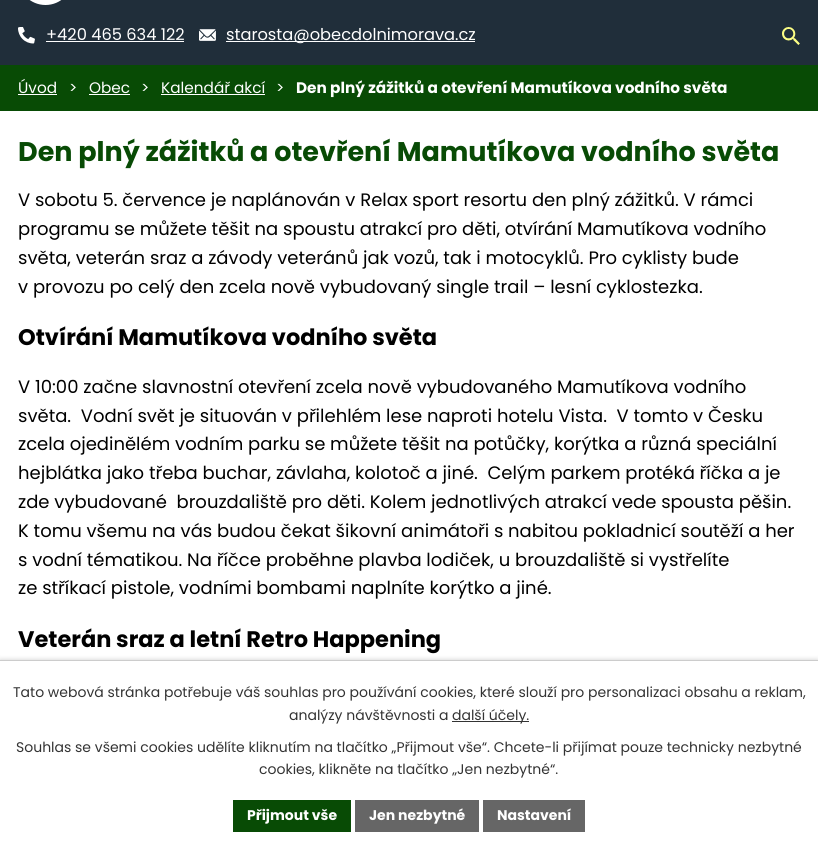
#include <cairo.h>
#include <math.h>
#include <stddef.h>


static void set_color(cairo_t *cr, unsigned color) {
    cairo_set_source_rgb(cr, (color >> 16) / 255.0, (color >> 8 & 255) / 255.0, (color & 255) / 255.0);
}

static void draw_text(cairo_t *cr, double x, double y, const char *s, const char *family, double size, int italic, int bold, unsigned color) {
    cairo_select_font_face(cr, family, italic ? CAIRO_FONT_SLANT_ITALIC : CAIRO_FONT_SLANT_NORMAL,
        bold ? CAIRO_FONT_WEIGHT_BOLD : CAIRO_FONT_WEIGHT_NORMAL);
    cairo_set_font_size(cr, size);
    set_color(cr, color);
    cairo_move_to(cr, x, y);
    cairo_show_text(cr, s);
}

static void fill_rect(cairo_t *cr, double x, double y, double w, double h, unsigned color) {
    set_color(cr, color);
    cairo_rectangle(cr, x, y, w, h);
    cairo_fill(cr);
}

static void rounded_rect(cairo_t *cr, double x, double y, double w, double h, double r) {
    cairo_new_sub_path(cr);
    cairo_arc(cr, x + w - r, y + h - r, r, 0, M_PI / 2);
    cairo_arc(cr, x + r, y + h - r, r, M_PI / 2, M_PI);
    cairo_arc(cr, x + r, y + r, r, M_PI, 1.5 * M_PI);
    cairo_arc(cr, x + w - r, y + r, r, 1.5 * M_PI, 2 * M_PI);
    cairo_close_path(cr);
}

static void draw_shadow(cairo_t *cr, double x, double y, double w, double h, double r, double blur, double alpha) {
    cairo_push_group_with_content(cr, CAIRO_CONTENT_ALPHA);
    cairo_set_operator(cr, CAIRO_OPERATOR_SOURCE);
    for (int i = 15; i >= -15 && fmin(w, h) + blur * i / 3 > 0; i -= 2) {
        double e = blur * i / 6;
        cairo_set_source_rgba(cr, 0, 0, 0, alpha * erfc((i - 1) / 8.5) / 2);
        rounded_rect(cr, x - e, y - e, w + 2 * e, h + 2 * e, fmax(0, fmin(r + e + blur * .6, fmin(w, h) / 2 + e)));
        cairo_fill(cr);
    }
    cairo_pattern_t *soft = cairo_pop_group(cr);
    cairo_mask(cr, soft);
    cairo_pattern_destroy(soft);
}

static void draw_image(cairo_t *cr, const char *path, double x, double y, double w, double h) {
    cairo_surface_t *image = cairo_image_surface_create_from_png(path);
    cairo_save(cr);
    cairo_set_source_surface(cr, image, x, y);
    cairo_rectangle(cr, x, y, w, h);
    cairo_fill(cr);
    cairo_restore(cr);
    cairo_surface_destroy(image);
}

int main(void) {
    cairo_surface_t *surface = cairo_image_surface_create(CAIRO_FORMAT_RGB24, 818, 851);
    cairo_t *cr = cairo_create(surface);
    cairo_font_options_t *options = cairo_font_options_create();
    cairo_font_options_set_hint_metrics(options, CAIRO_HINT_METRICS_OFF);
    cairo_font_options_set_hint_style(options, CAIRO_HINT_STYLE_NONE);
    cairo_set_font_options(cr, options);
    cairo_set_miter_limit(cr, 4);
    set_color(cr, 0xFFFFFF);
    cairo_paint(cr);
    fill_rect(cr, 0, 0, 818, 65, 0x202E3A);
    set_color(cr, 0xFFFFFF);
    rounded_rect(cr, 18, -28, 55, 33, 27.5);
    cairo_fill(cr);
    draw_image(cr, "assets/img1.png", 18, 27, 17, 17);
    draw_text(cr, 46, 40, "+420 465 634 122", "Poppins", 16.25, 0, 0, 0xFFFFFF);
    fill_rect(cr, 46, 41, 138, 1, 0xFFFFFF);
    draw_image(cr, "assets/img2.png", 199, 29, 17, 12);
    fill_rect(cr, 226, 41, 249, 1, 0xFFFFFF);
    draw_text(cr, 226, 40, "starosta@obecdolnimorava.cz", "Poppins", 16.25, 0, 0, 0xFFFFFF);
    draw_image(cr, "assets/img3.png", 782, 27, 18, 18);
    fill_rect(cr, 0, 65, 818, 46, 0x084B05);
    draw_text(cr, 18, 93, "Úvod", "Poppins", 15.3, 0, 0, 0xFFFFFF);
    fill_rect(cr, 18, 94, 39, 1, 0xFFFFFF);
    draw_text(cr, 69, 93, ">", "Poppins", 15.3, 0, 0, 0xFFFFFF);
    draw_text(cr, 89, 93, "Obec", "Poppins", 15.3, 0, 0, 0xFFFFFF);
    fill_rect(cr, 89, 94, 41, 1, 0xFFFFFF);
    draw_text(cr, 141, 93, ">", "Poppins", 15.3, 0, 0, 0xFFFFFF);
    draw_text(cr, 161, 93, "Kalendář akcí", "Poppins", 15.3, 0, 0, 0xFFFFFF);
    fill_rect(cr, 161, 94, 104, 1, 0xFFFFFF);
    draw_text(cr, 276, 93, ">", "Poppins", 15.3, 0, 0, 0xFFFFFF);
    draw_text(cr, 296, 93, "Den plný zážitků a otevření Mamutíkova vodního světa", "Poppins", 15.3, 0, 1, 0xFFFFFF);
    draw_text(cr, 18, 161, "Den plný zážitků a otevření Mamutíkova vodního světa", "Poppins", 27, 0, 1, 0x084B05);
    draw_text(cr, 18, 206, "V sobotu 5. července je naplánován v Relax sport resortu den plný zážitků. V rámci", "Poppins", 18, 0, 0, 0x000000);
    draw_text(cr, 18, 235, "programu se můžete těšit na spoustu atrakcí pro děti, otvírání Mamutíkova vodního", "Poppins", 18, 0, 0, 0x000000);
    draw_text(cr, 18, 264, "světa, veterán sraz a závody veteránů jak vozů, tak i motocyklů. Pro cyklisty bude", "Poppins", 18, 0, 0, 0x000000);
    draw_text(cr, 18, 293, "v provozu po celý den zcela nově vybudovaný single trail – lesní cyklostezka.", "Poppins", 18, 0, 0, 0x000000);
    draw_text(cr, 18, 345, "Otvírání Mamutíkova vodního světa", "Poppins", 22.5, 0, 1, 0x000000);
    draw_text(cr, 18, 393, "V 10:00 začne slavnostní otevření zcela nově vybudovaného Mamutíkova vodního", "Poppins", 18, 0, 0, 0x000000);
    draw_text(cr, 18, 422, "světa.  Vodní svět je situován v přilehlém lese naproti hotelu Vista.  V tomto v Česku", "Poppins", 18, 0, 0, 0x000000);
    draw_text(cr, 18, 450, "zcela ojedinělém vodním parku se můžete těšit na potůčky, korýtka a různá speciální", "Poppins", 18, 0, 0, 0x000000);
    draw_text(cr, 18, 479, "hejblátka jako třeba buchar, závlaha, kolotoč a jiné.  Celým parkem protéká říčka a je", "Poppins", 18, 0, 0, 0x000000);
    draw_text(cr, 18, 508, "zde vybudované  brouzdaliště pro děti. Kolem jednotlivých atrakcí vede spousta pěšin.", "Poppins", 18, 0, 0, 0x000000);
    draw_text(cr, 18, 537, "K tomu všemu na vás budou čekat šikovní animátoři s nabitou pokladnicí soutěží a her", "Poppins", 18, 0, 0, 0x000000);
    draw_text(cr, 18, 566, "s vodní tématikou. Na říčce proběhne plavba lodiček, u brouzdaliště si vystřelíte", "Poppins", 18, 0, 0, 0x000000);
    draw_text(cr, 18, 594, "ze stříkací pistole, vodními bombami naplníte korýtko a jiné.", "Poppins", 18, 0, 0, 0x000000);
    draw_text(cr, 18, 647, "Veterán sraz a letní Retro Happening", "Poppins", 22.5, 0, 1, 0x000000);
    set_color(cr, 0x000000);
    draw_shadow(cr, 0, 660, 818, 191, 0, 2.5, 0.2);
    fill_rect(cr, 0, 661, 818, 190, 0xFFFFFF);
    fill_rect(cr, 0, 660, 818, 1, 0xCCCCCC);
    draw_text(cr, 13, 697, "Tato webová stránka potřebuje váš souhlas pro používání cookies, které slouží pro personalizaci obsahu a reklam,", "Poppins", 14, 0, 0, 0x333333);
    draw_text(cr, 289, 720, "analýzy návštěvnosti a", "Poppins", 14, 0, 0, 0x333333);
    fill_rect(cr, 452, 721, 77, 1, 0x333333);
    draw_text(cr, 452, 720, "další účely.", "Poppins", 14, 0, 0, 0x333333);
    draw_text(cr, 16, 752, "Souhlas se všemi cookies udělíte kliknutím na tlačítko „Přijmout vše“. Chcete-li přijímat pouze technicky nezbytné", "Poppins", 14, 0, 0, 0x333333);
    draw_text(cr, 259, 774, "cookies, klikněte na tlačítko „Jen nezbytné“.", "Poppins", 14, 0, 0, 0x333333);
    fill_rect(cr, 233, 800, 118, 32, 0x084B05);
    draw_text(cr, 247, 820, "Přijmout vše", "Poppins", 14, 0, 1, 0xFFFFFF);
    fill_rect(cr, 355, 800, 124, 32, 0x666666);
    draw_text(cr, 369, 820, "Jen nezbytné", "Poppins", 14, 0, 1, 0xFFFFFF);
    fill_rect(cr, 483, 800, 102, 32, 0x666666);
    draw_text(cr, 497, 820, "Nastavení", "Poppins", 14, 0, 1, 0xFFFFFF);
    cairo_surface_write_to_png(surface, "output.png");
    cairo_font_options_destroy(options);
    cairo_destroy(cr);
    cairo_surface_destroy(surface);
    return 0;
}
